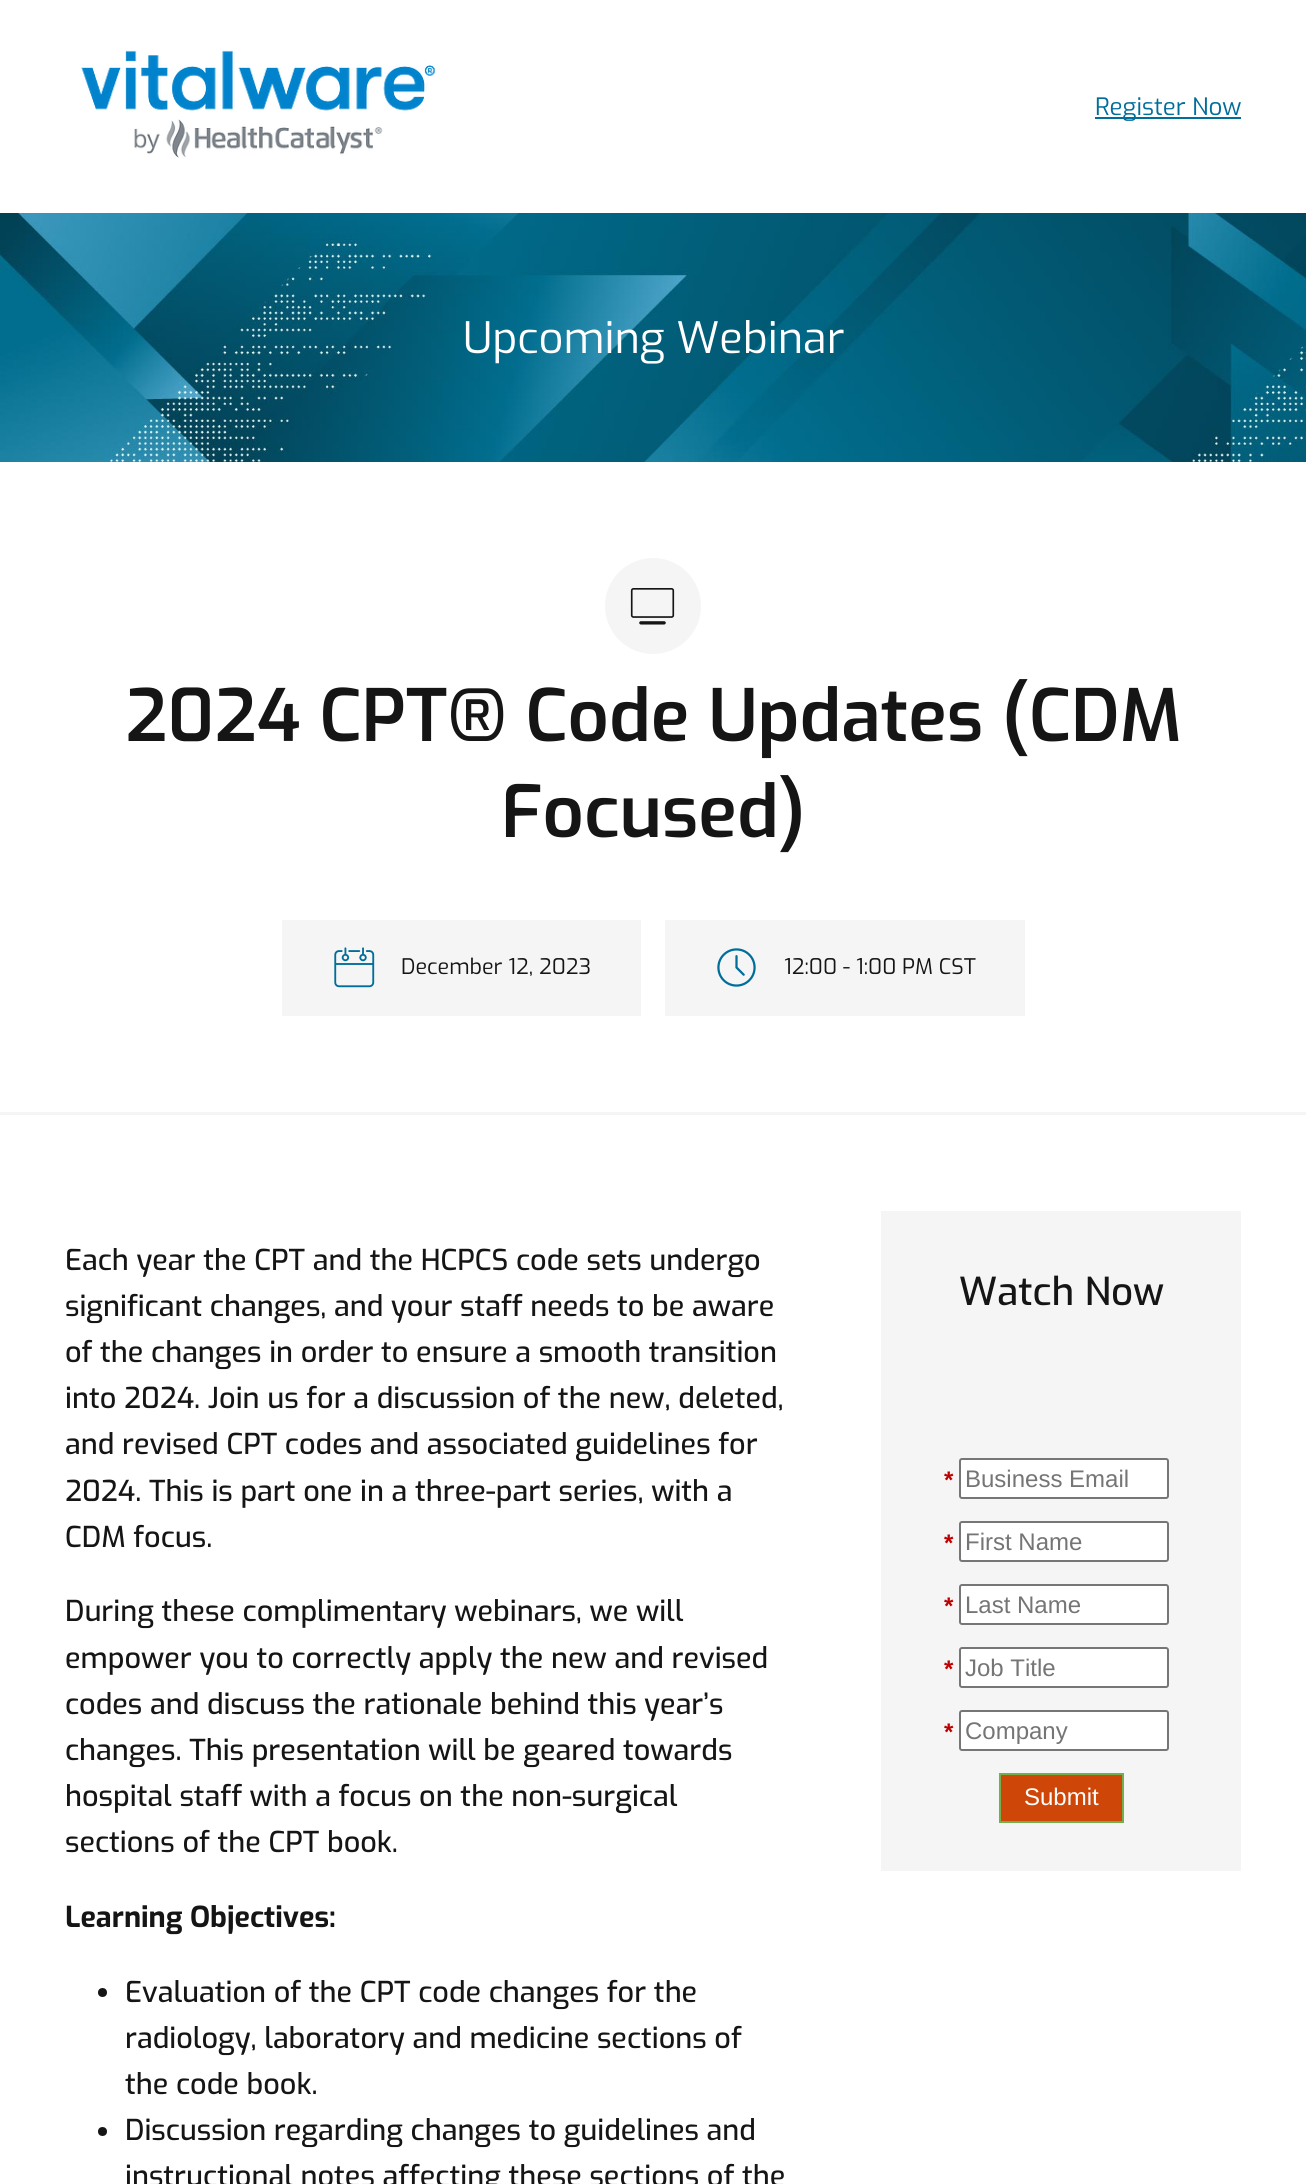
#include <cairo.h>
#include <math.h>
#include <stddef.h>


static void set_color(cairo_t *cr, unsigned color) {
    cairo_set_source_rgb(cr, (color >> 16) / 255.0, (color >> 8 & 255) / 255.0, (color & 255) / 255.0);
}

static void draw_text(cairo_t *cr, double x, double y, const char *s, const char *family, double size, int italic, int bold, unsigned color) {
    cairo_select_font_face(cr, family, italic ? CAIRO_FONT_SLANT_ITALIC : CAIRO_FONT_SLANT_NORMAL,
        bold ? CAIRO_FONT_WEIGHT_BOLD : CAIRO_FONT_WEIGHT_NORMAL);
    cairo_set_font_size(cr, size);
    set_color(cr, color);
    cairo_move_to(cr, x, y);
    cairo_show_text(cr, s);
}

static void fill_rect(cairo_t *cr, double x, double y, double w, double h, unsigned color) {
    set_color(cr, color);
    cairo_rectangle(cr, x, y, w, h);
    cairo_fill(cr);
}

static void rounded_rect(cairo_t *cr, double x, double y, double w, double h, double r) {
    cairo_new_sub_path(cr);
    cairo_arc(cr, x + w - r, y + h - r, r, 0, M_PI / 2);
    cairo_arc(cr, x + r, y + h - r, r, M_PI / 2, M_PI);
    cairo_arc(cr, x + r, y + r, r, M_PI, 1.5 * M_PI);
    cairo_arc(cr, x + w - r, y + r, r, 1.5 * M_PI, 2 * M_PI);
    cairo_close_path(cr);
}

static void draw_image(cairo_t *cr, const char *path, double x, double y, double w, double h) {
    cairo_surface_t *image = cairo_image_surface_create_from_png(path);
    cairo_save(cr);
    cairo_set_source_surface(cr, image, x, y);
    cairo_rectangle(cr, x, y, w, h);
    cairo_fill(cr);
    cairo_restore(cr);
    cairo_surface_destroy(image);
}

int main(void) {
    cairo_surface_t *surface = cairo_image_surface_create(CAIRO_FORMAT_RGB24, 1306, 2184);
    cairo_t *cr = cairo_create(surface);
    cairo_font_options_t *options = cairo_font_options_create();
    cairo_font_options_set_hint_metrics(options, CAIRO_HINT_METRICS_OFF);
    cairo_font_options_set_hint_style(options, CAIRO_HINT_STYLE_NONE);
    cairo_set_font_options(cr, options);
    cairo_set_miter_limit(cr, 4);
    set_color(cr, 0xFFFFFF);
    cairo_paint(cr);
    draw_image(cr, "assets/img1.png", 81, 50, 355, 108);
    fill_rect(cr, 1095, 117, 146, 2, 0x006D9A);
    draw_text(cr, 1095, 115, "Register Now", "Exo", 24, 0, 0, 0x006D9A);
    draw_image(cr, "assets/img2.png", 0, 213, 1306, 249);
    draw_text(cr, 463, 353, "Upcoming Webinar", "Exo", 43.25, 0, 0, 0xFFFFFF);
    fill_rect(cr, 0, 1112, 1306, 3, 0xF5F5F5);
    cairo_new_path(cr);
    cairo_arc(cr, 653, 606, 48, 0, 2 * M_PI);
    cairo_fill(cr);
    draw_image(cr, "assets/img3.png", 630, 588, 45, 37);
    draw_text(cr, 125, 741, "2024 CPT® Code Updates (CDM", "Exo SemiBold", 72, 0, 0, 0x151515);
    draw_text(cr, 501, 837, "Focused)", "Exo SemiBold", 72, 0, 0, 0x151515);
    fill_rect(cr, 282, 920, 359, 96, 0xF5F5F5);
    draw_image(cr, "assets/img4.png", 334, 947, 41, 41);
    draw_text(cr, 401, 974, "December 12, 2023", "Exo", 21.5, 0, 0, 0x151515);
    fill_rect(cr, 665, 920, 360, 96, 0xF5F5F5);
    draw_image(cr, "assets/img5.png", 717, 948, 39, 39);
    draw_text(cr, 784, 974, "12:00 - 1:00 PM CST", "Exo", 21.5, 0, 0, 0x151515);
    draw_text(cr, 65, 1270, "Each year the CPT and the HCPCS code sets undergo", "Exo Medium", 28.8, 0, 0, 0x151515);
    draw_text(cr, 65, 1316, "significant changes, and your staff needs to be aware", "Exo Medium", 28.8, 0, 0, 0x151515);
    draw_text(cr, 65, 1362, "of the changes in order to ensure a smooth transition", "Exo Medium", 28.8, 0, 0, 0x151515);
    draw_text(cr, 65, 1408, "into 2024. Join us for a discussion of the new, deleted,", "Exo Medium", 28.8, 0, 0, 0x151515);
    draw_text(cr, 65, 1454, "and revised CPT codes and associated guidelines for", "Exo Medium", 28.8, 0, 0, 0x151515);
    draw_text(cr, 65, 1501, "2024. This is part one in a three-part series, with a", "Exo Medium", 28.8, 0, 0, 0x151515);
    draw_text(cr, 65, 1547, "CDM focus.", "Exo Medium", 28.8, 0, 0, 0x151515);
    draw_text(cr, 65, 1621, "During these complimentary webinars, we will", "Exo Medium", 28.8, 0, 0, 0x151515);
    draw_text(cr, 65, 1668, "empower you to correctly apply the new and revised", "Exo Medium", 28.8, 0, 0, 0x151515);
    draw_text(cr, 65, 1714, "codes and discuss the rationale behind this year’s", "Exo Medium", 28.8, 0, 0, 0x151515);
    draw_text(cr, 65, 1760, "changes. This presentation will be geared towards", "Exo Medium", 28.8, 0, 0, 0x151515);
    draw_text(cr, 65, 1806, "hospital staff with a focus on the non-surgical", "Exo Medium", 28.8, 0, 0, 0x151515);
    draw_text(cr, 65, 1852, "sections of the CPT book.", "Exo Medium", 28.8, 0, 0, 0x151515);
    draw_text(cr, 65, 1927, "Learning Objectives:", "Exo", 28.8, 0, 1, 0x151515);
    cairo_new_path(cr);
    cairo_arc(cr, 102.5, 1992.5, 4.5, 0, 2 * M_PI);
    cairo_fill(cr);
    draw_text(cr, 125, 2002, "Evaluation of the CPT code changes for the", "Exo Medium", 28.8, 0, 0, 0x151515);
    draw_text(cr, 125, 2048, "radiology, laboratory and medicine sections of", "Exo Medium", 28.8, 0, 0, 0x151515);
    draw_text(cr, 125, 2094, "the code book.", "Exo Medium", 28.8, 0, 0, 0x151515);
    cairo_new_path(cr);
    cairo_arc(cr, 102.5, 2131.5, 4.5, 0, 2 * M_PI);
    cairo_fill(cr);
    draw_text(cr, 125, 2140, "Discussion regarding changes to guidelines and", "Exo Medium", 28.8, 0, 0, 0x151515);
    draw_text(cr, 125, 2186, "instructional notes affecting these sections of the", "Exo Medium", 28.8, 0, 0, 0x151515);
    fill_rect(cr, 881, 1211, 360, 660, 0xF5F5F5);
    draw_text(cr, 959, 1305, "Watch Now", "Exo Medium", 38.5, 0, 0, 0x151515);
    draw_text(cr, 944, 1488, "*", "Liberation Sans", 24, 0, 1, 0xBF0000);
    set_color(cr, 0xFFFFFF);
    rounded_rect(cr, 960, 1459, 208, 39, 2);
    cairo_fill_preserve(cr);
    set_color(cr, 0x767676);
    cairo_stroke(cr);
    draw_text(cr, 965, 1487, "Business Email", "Liberation Sans", 24, 0, 0, 0x757575);
    draw_text(cr, 944, 1551, "*", "Liberation Sans", 24, 0, 1, 0xBF0000);
    set_color(cr, 0xFFFFFF);
    rounded_rect(cr, 960, 1522, 208, 39, 2);
    cairo_fill_preserve(cr);
    set_color(cr, 0x767676);
    cairo_stroke(cr);
    draw_text(cr, 965, 1550, "First Name", "Liberation Sans", 24, 0, 0, 0x757575);
    draw_text(cr, 944, 1614, "*", "Liberation Sans", 24, 0, 1, 0xBF0000);
    set_color(cr, 0xFFFFFF);
    rounded_rect(cr, 960, 1585, 208, 39, 2);
    cairo_fill_preserve(cr);
    set_color(cr, 0x767676);
    cairo_stroke(cr);
    draw_text(cr, 965, 1613, "Last Name", "Liberation Sans", 24, 0, 0, 0x757575);
    draw_text(cr, 944, 1677, "*", "Liberation Sans", 24, 0, 1, 0xBF0000);
    set_color(cr, 0xFFFFFF);
    rounded_rect(cr, 960, 1648, 208, 39, 2);
    cairo_fill_preserve(cr);
    set_color(cr, 0x767676);
    cairo_stroke(cr);
    draw_text(cr, 965, 1676, "Job Title", "Liberation Sans", 24, 0, 0, 0x757575);
    draw_text(cr, 944, 1740, "*", "Liberation Sans", 24, 0, 1, 0xBF0000);
    set_color(cr, 0xFFFFFF);
    rounded_rect(cr, 960, 1711, 208, 39, 2);
    cairo_fill_preserve(cr);
    set_color(cr, 0x767676);
    cairo_stroke(cr);
    draw_text(cr, 965, 1739, "Company", "Liberation Sans", 24, 0, 0, 0x757575);
    set_color(cr, 0xCE4709);
    cairo_rectangle(cr, 1000, 1774, 123, 48);
    cairo_fill_preserve(cr);
    set_color(cr, 0x75AE4C);
    cairo_stroke(cr);
    draw_text(cr, 1024, 1805, "Submit", "Liberation Sans", 24, 0, 0, 0xFFFFFF);
    cairo_surface_write_to_png(surface, "output.png");
    cairo_font_options_destroy(options);
    cairo_destroy(cr);
    cairo_surface_destroy(surface);
    return 0;
}
